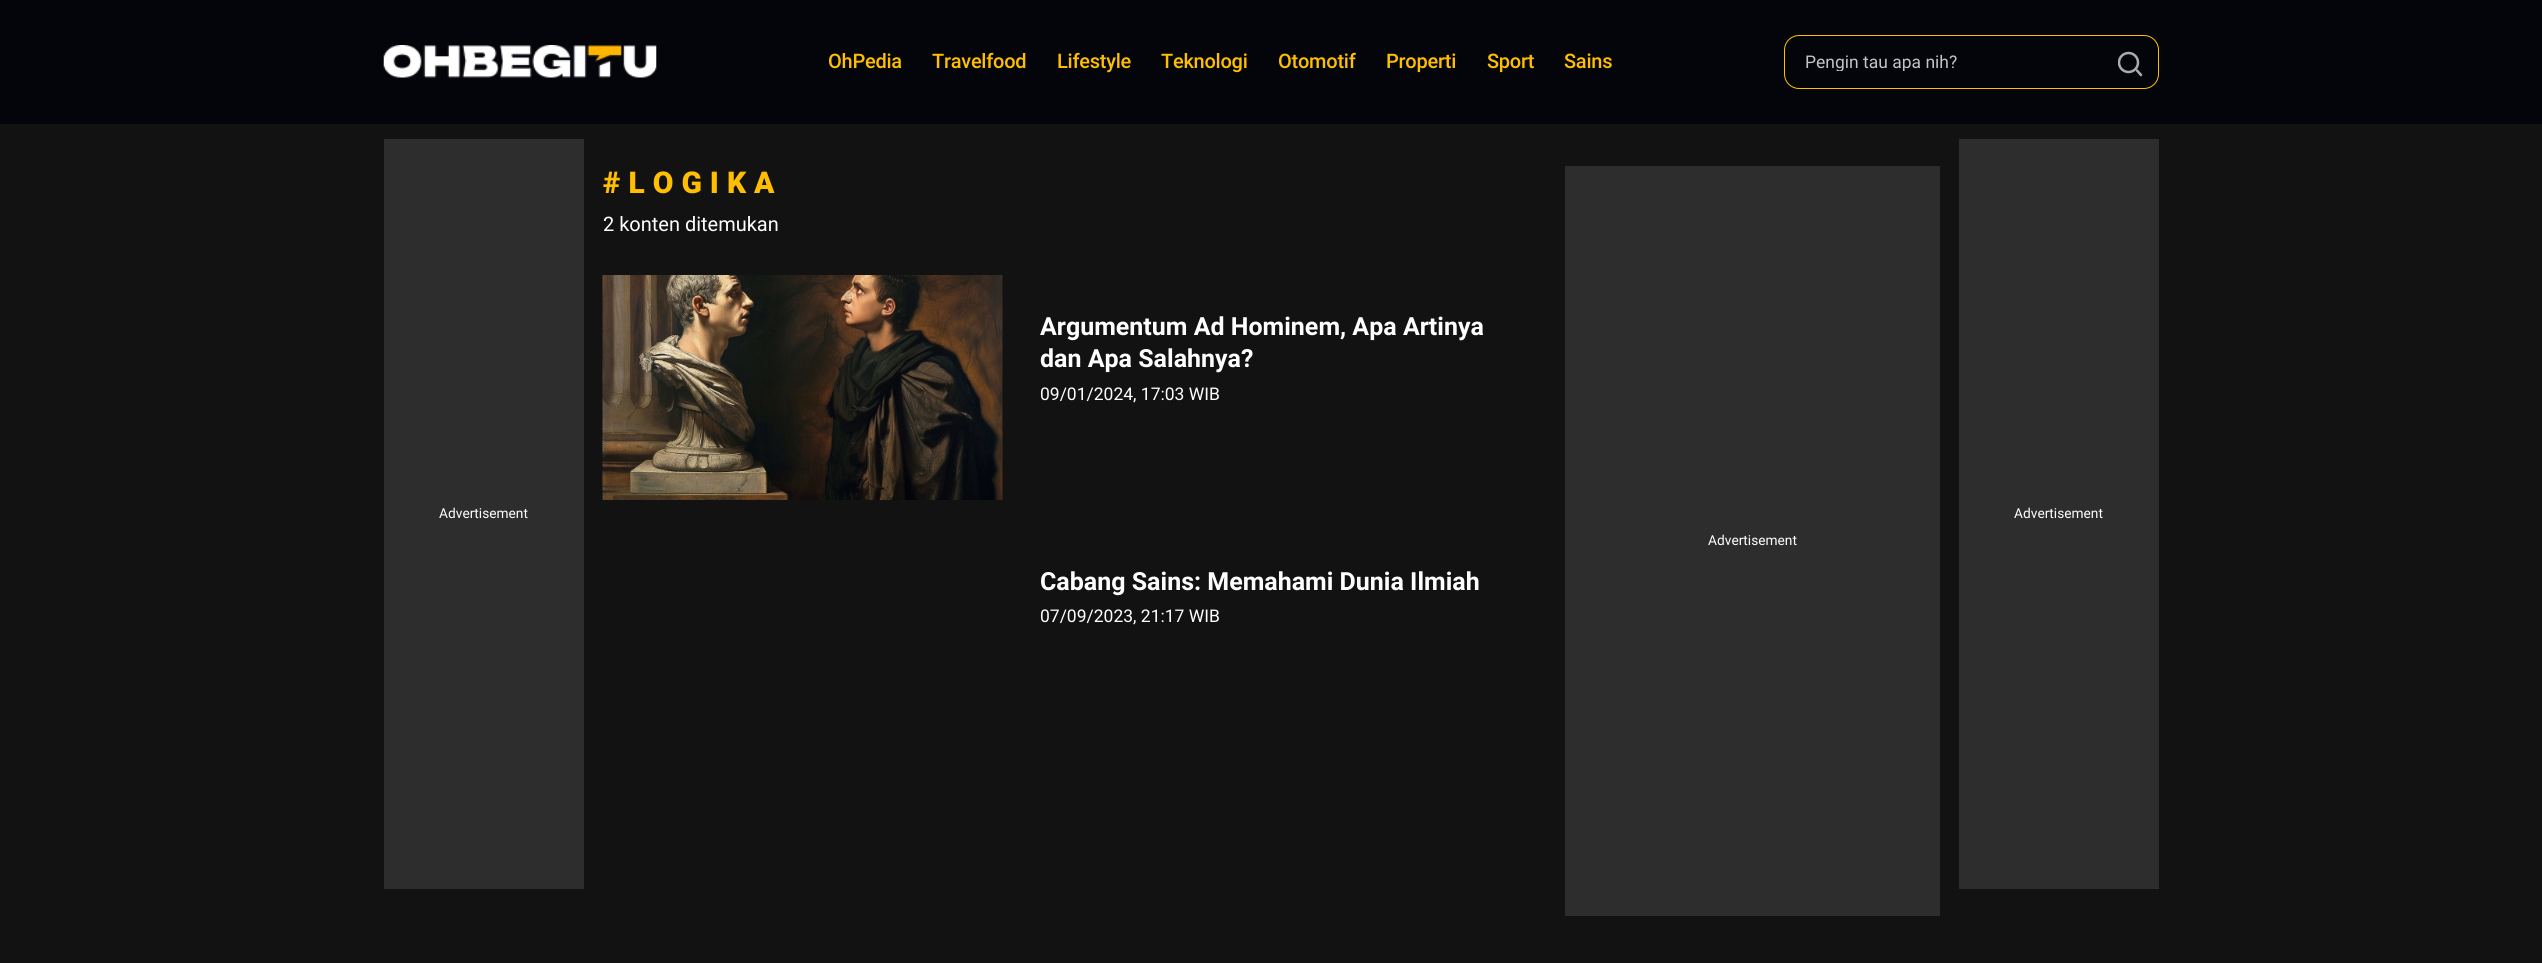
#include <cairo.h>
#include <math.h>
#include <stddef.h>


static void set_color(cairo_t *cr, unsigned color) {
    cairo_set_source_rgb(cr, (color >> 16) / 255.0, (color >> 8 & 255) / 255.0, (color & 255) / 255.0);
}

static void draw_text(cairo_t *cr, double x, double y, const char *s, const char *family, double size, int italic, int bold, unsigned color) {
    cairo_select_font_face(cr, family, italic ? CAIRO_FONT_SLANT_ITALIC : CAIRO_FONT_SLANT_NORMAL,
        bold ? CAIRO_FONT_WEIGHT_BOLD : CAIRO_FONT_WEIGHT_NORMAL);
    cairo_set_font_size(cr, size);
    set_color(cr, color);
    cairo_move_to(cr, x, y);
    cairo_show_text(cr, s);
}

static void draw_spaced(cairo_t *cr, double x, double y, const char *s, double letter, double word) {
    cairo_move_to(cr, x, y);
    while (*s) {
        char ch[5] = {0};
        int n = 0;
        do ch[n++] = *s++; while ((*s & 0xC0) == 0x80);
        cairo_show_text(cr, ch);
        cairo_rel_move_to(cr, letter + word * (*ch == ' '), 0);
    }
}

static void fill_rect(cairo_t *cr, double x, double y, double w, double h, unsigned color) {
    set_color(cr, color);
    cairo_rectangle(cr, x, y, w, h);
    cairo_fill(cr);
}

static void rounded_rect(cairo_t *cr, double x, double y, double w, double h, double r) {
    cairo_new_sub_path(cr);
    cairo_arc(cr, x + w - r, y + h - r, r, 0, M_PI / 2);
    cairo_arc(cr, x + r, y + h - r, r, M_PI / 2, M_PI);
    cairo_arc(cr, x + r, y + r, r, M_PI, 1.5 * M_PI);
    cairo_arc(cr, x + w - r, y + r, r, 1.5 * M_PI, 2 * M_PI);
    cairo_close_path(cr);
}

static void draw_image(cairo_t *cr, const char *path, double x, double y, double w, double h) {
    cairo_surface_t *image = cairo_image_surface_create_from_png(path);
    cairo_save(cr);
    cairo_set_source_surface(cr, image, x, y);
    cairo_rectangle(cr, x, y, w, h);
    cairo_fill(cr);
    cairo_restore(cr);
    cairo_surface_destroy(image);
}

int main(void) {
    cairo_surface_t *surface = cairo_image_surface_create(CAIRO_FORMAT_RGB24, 2542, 963);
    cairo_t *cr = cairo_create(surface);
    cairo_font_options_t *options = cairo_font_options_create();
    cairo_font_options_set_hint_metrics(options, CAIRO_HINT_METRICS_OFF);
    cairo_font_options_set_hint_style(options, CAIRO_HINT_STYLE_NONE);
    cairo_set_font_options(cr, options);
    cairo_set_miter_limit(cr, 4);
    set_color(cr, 0x121212);
    cairo_paint(cr);
    fill_rect(cr, 0, 0, 2542, 124, 0x04050A);
    draw_image(cr, "assets/img1.png", 383, 45, 274, 33);
    cairo_select_font_face(cr, "Roboto Medium", CAIRO_FONT_SLANT_NORMAL, CAIRO_FONT_WEIGHT_NORMAL);
    cairo_set_font_size(cr, 20);
    set_color(cr, 0xFFBF00);
    draw_spaced(cr, 828, 68, "OhPedia", -0.25, 0);
    draw_spaced(cr, 932, 68, "Travelfood", -0.25, 0);
    draw_spaced(cr, 1057, 68, "Lifestyle", -0.25, 0);
    draw_spaced(cr, 1161, 68, "Teknologi", -0.25, 0);
    draw_spaced(cr, 1278, 68, "Otomotif", -0.25, 0);
    draw_spaced(cr, 1386, 68, "Properti", -0.25, 0);
    draw_spaced(cr, 1487, 68, "Sport", -0.25, 0);
    draw_spaced(cr, 1564, 68, "Sains", -0.25, 0);
    rounded_rect(cr, 1784.5, 35.5, 374, 53, 14.5);
    cairo_set_line_width(cr, 1);
    cairo_stroke(cr);
    cairo_save(cr);
    cairo_rectangle(cr, 1805, 51, 303, 20);
    cairo_clip(cr);
    draw_text(cr, 1805, 68, "Pengin tau apa nih?", "Roboto", 17.5, 0, 0, 0xC4C4C4);
    cairo_restore(cr);
    cairo_save(cr);
    cairo_rectangle(cr, 2118, 51, 25, 25);
    cairo_clip(cr);
    cairo_arc(cr, 2128.5, 62.5, 9.5, 0, 2 * M_PI);
    set_color(cr, 0xACACAC);
    cairo_set_line_width(cr, 2.5);
    cairo_stroke(cr);
    cairo_restore(cr);
    cairo_new_path(cr);
    cairo_move_to(cr, 2141, 75);
    cairo_line_to(cr, 2137, 70.5);
    set_color(cr, 0xACACAC);
    cairo_set_line_width(cr, 2.5);
    cairo_set_line_cap(cr, CAIRO_LINE_CAP_ROUND);
    cairo_stroke(cr);
    cairo_select_font_face(cr, "Roboto Black", CAIRO_FONT_SLANT_NORMAL, CAIRO_FONT_WEIGHT_NORMAL);
    cairo_set_font_size(cr, 30);
    set_color(cr, 0xFFBF00);
    draw_spaced(cr, 603, 193, "#LOGIKA", 8, 0);
    draw_text(cr, 603, 231, "2 konten ditemukan", "Roboto", 20, 0, 0, 0xFFFFFF);
    draw_image(cr, "assets/img2.png", 602, 275, 401, 225);
    draw_text(cr, 1040, 335, "Argumentum Ad Hominem, Apa Artinya", "Roboto", 25, 0, 1, 0xFFFFFF);
    draw_text(cr, 1040, 367, "dan Apa Salahnya?", "Roboto", 25, 0, 1, 0xFFFFFF);
    draw_text(cr, 1040, 400, "09/01/2024, 17:03 WIB", "Roboto", 17.5, 0, 0, 0xFFFFFF);
    draw_text(cr, 1040, 590, "Cabang Sains: Memahami Dunia Ilmiah", "Roboto", 25, 0, 1, 0xFFFFFF);
    draw_text(cr, 1040, 622, "07/09/2023, 21:17 WIB", "Roboto", 17.5, 0, 0, 0xFFFFFF);
    fill_rect(cr, 1565, 166, 375, 750, 0x2D2D2D);
    draw_text(cr, 1708, 545, "Advertisement", "Roboto", 13.75, 0, 0, 0xFFFFFF);
    fill_rect(cr, 384, 139, 200, 750, 0x2D2D2D);
    draw_text(cr, 439, 518, "Advertisement", "Roboto", 13.75, 0, 0, 0xFFFFFF);
    fill_rect(cr, 1959, 139, 200, 750, 0x2D2D2D);
    draw_text(cr, 2014, 518, "Advertisement", "Roboto", 13.75, 0, 0, 0xFFFFFF);
    cairo_surface_write_to_png(surface, "output.png");
    cairo_font_options_destroy(options);
    cairo_destroy(cr);
    cairo_surface_destroy(surface);
    return 0;
}
